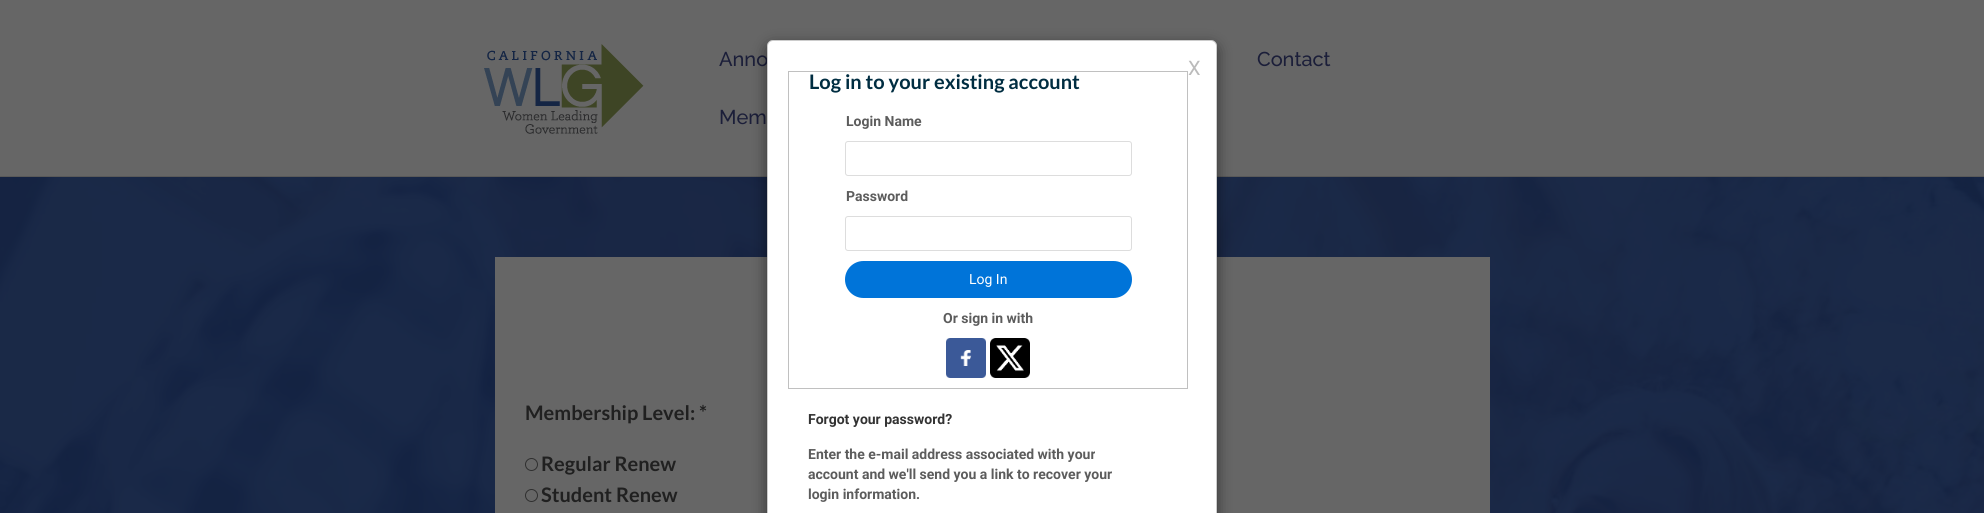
#include <cairo.h>
#include <math.h>
#include <stddef.h>


static void set_color(cairo_t *cr, unsigned color) {
    cairo_set_source_rgb(cr, (color >> 16) / 255.0, (color >> 8 & 255) / 255.0, (color & 255) / 255.0);
}

static void draw_text(cairo_t *cr, double x, double y, const char *s, const char *family, double size, int italic, int bold, unsigned color) {
    cairo_select_font_face(cr, family, italic ? CAIRO_FONT_SLANT_ITALIC : CAIRO_FONT_SLANT_NORMAL,
        bold ? CAIRO_FONT_WEIGHT_BOLD : CAIRO_FONT_WEIGHT_NORMAL);
    cairo_set_font_size(cr, size);
    set_color(cr, color);
    cairo_move_to(cr, x, y);
    cairo_show_text(cr, s);
}

static void fill_rect(cairo_t *cr, double x, double y, double w, double h, unsigned color) {
    set_color(cr, color);
    cairo_rectangle(cr, x, y, w, h);
    cairo_fill(cr);
}

static void rounded_rect(cairo_t *cr, double x, double y, double w, double h, double r) {
    cairo_new_sub_path(cr);
    cairo_arc(cr, x + w - r, y + h - r, r, 0, M_PI / 2);
    cairo_arc(cr, x + r, y + h - r, r, M_PI / 2, M_PI);
    cairo_arc(cr, x + r, y + r, r, M_PI, 1.5 * M_PI);
    cairo_arc(cr, x + w - r, y + r, r, 1.5 * M_PI, 2 * M_PI);
    cairo_close_path(cr);
}

static void draw_shadow(cairo_t *cr, double x, double y, double w, double h, double r, double blur, double alpha) {
    cairo_push_group_with_content(cr, CAIRO_CONTENT_ALPHA);
    cairo_set_operator(cr, CAIRO_OPERATOR_SOURCE);
    for (int i = 15; i >= -15 && fmin(w, h) + blur * i / 3 > 0; i -= 2) {
        double e = blur * i / 6;
        cairo_set_source_rgba(cr, 0, 0, 0, alpha * erfc((i - 1) / 8.5) / 2);
        rounded_rect(cr, x - e, y - e, w + 2 * e, h + 2 * e, fmax(0, fmin(r + e + blur * .6, fmin(w, h) / 2 + e)));
        cairo_fill(cr);
    }
    cairo_pattern_t *soft = cairo_pop_group(cr);
    cairo_mask(cr, soft);
    cairo_pattern_destroy(soft);
}

static void draw_image(cairo_t *cr, const char *path, double x, double y, double w, double h) {
    cairo_surface_t *image = cairo_image_surface_create_from_png(path);
    cairo_save(cr);
    cairo_set_source_surface(cr, image, x, y);
    cairo_rectangle(cr, x, y, w, h);
    cairo_fill(cr);
    cairo_restore(cr);
    cairo_surface_destroy(image);
}

int main(void) {
    cairo_surface_t *surface = cairo_image_surface_create(CAIRO_FORMAT_RGB24, 1984, 513);
    cairo_t *cr = cairo_create(surface);
    cairo_font_options_t *options = cairo_font_options_create();
    cairo_font_options_set_hint_metrics(options, CAIRO_HINT_METRICS_OFF);
    cairo_font_options_set_hint_style(options, CAIRO_HINT_STYLE_NONE);
    cairo_set_font_options(cr, options);
    cairo_set_miter_limit(cr, 4);
    set_color(cr, 0xFFFFFF);
    cairo_paint(cr);
    fill_rect(cr, 0, 0, 1984, 176, 0x666666);
    fill_rect(cr, 0, 176, 1984, 1, 0x595959);
    draw_image(cr, "assets/img1.png", 484, 44, 160, 90);
    draw_text(cr, 719, 66, "Anno", "Raleway Medium", 20, 0, 0, 0x1B1E39);
    draw_text(cr, 1257, 66, "Contact", "Raleway Medium", 20, 0, 0, 0x1B1E39);
    draw_text(cr, 719, 124, "Mem", "Raleway Medium", 20, 0, 0, 0x1B1E39);
    draw_image(cr, "assets/img2.png", 0, 177, 1984, 336);
    fill_rect(cr, 495, 257, 995, 256, 0x666666);
    draw_text(cr, 525, 420, "Membership Level: *", "Lato", 20, 0, 1, 0x202020);
    cairo_new_path(cr);
    cairo_arc(cr, 531.5, 464.5, 6, 0, 2 * M_PI);
    set_color(cr, 0x2F2F2F);
    cairo_set_line_width(cr, 1);
    cairo_stroke(cr);
    draw_text(cr, 541, 471, "Regular Renew", "Lato", 20, 0, 1, 0x202020);
    cairo_new_path(cr);
    cairo_arc(cr, 531.5, 495.5, 6, 0, 2 * M_PI);
    set_color(cr, 0x2F2F2F);
    cairo_stroke(cr);
    draw_text(cr, 541, 502, "Student Renew", "Lato", 20, 0, 1, 0x202020);
    set_color(cr, 0x000000);
    draw_shadow(cr, 767, 45, 450, 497, 6, 7.5, 0.5);
    set_color(cr, 0xFFFFFF);
    rounded_rect(cr, 767, 40, 450, 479, 6);
    cairo_fill(cr);
    rounded_rect(cr, 767.5, 40.5, 449, 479, 5.5);
    cairo_set_source_rgba(cr, 0, 0, 0, 0.2);
    cairo_stroke(cr);
    draw_text(cr, 1188, 75, "X", "Roboto", 20, 0, 0, 0xBBBBBB);
    cairo_rectangle(cr, 788.5, 71.5, 399, 317);
    set_color(cr, 0xC0C0C0);
    cairo_stroke(cr);
    draw_text(cr, 809, 89, "Log in to your existing account", "Lato", 20, 0, 1, 0x002D41);
    draw_text(cr, 846, 126, "Login Name", "Roboto", 14, 0, 1, 0x5C5C5C);
    rounded_rect(cr, 845.5, 141.5, 286, 34, 2.5);
    set_color(cr, 0xDDDDDD);
    cairo_stroke(cr);
    draw_text(cr, 846, 201, "Password", "Roboto", 14, 0, 1, 0x5C5C5C);
    rounded_rect(cr, 845.5, 216.5, 286, 34, 2.5);
    set_color(cr, 0xDDDDDD);
    cairo_stroke(cr);
    set_color(cr, 0x0074D9);
    rounded_rect(cr, 845, 261, 287, 37, 18.5);
    cairo_fill(cr);
    draw_text(cr, 969, 284, "Log In", "Roboto", 14, 0, 0, 0xFFFFFF);
    draw_text(cr, 943, 323, "Or sign in with", "Roboto", 14, 0, 1, 0x5C5C5C);
    draw_image(cr, "assets/img3.png", 946, 338, 40, 40);
    draw_image(cr, "assets/img4.png", 990, 338, 40, 40);
    draw_text(cr, 808, 424, "Forgot your password?", "Roboto", 14, 0, 1, 0x333333);
    draw_text(cr, 808, 459, "Enter the e-mail address associated with your", "Roboto", 14, 0, 1, 0x5C5C5C);
    draw_text(cr, 808, 479, "account and we'll send you a link to recover your", "Roboto", 14, 0, 1, 0x5C5C5C);
    draw_text(cr, 808, 499, "login information.", "Roboto", 14, 0, 1, 0x5C5C5C);
    cairo_surface_write_to_png(surface, "output.png");
    cairo_font_options_destroy(options);
    cairo_destroy(cr);
    cairo_surface_destroy(surface);
    return 0;
}
